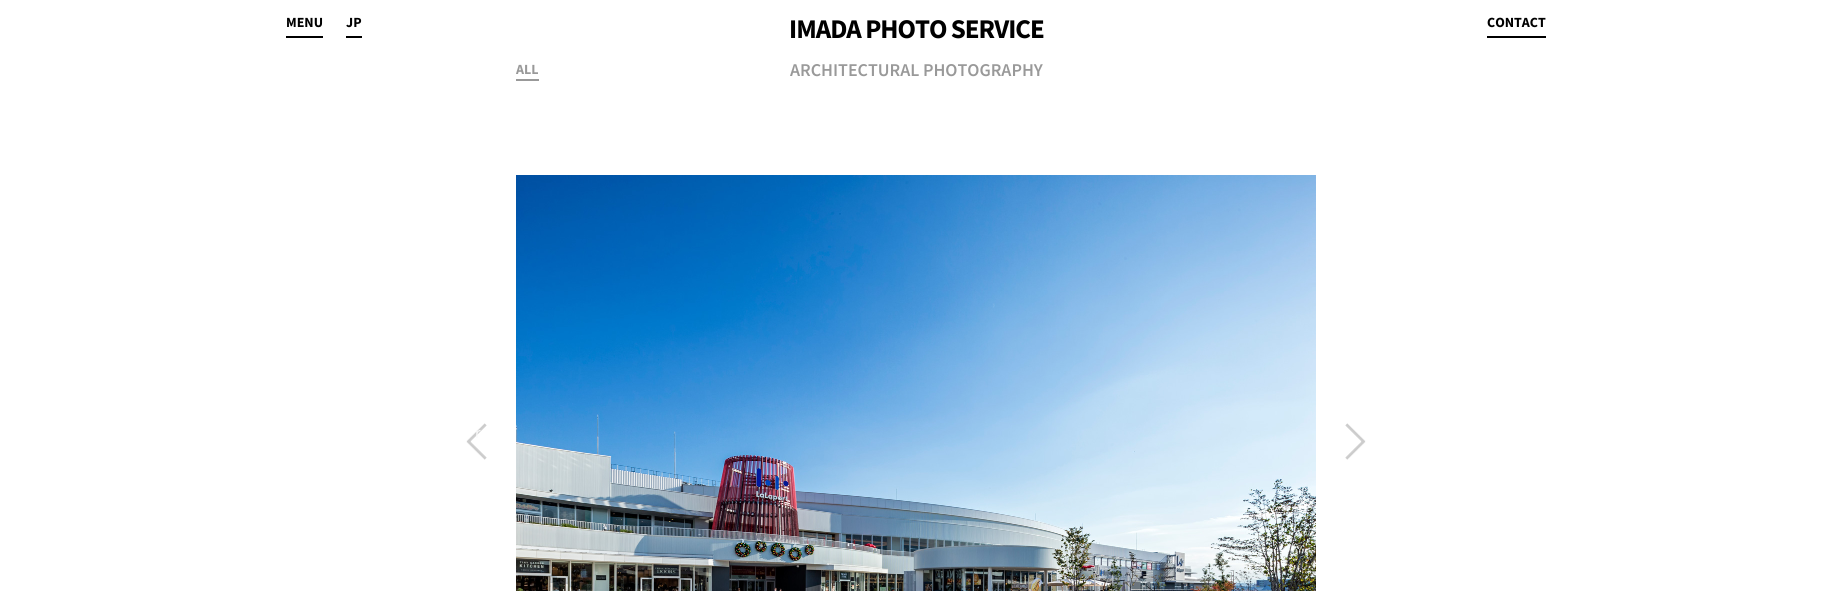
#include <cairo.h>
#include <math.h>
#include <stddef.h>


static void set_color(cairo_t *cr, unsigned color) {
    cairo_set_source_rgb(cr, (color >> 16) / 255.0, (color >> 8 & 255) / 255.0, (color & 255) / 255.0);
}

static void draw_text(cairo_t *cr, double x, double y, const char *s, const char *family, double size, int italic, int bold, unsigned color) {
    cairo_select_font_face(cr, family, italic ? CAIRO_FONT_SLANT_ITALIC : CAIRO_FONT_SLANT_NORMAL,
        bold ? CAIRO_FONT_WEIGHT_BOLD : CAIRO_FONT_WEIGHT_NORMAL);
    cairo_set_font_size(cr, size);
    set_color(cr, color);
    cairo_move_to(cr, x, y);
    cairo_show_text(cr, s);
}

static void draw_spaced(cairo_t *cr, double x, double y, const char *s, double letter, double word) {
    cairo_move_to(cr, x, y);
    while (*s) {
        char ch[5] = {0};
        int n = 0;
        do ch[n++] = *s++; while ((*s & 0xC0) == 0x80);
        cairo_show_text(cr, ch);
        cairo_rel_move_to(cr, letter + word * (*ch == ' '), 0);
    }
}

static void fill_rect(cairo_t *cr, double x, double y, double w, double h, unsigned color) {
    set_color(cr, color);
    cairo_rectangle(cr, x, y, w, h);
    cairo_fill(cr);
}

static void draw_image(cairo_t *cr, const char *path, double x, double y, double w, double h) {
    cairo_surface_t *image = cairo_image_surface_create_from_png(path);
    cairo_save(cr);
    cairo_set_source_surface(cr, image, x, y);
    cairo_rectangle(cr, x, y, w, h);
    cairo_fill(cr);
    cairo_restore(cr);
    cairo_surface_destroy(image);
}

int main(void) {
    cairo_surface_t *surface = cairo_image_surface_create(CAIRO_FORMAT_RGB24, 1832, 591);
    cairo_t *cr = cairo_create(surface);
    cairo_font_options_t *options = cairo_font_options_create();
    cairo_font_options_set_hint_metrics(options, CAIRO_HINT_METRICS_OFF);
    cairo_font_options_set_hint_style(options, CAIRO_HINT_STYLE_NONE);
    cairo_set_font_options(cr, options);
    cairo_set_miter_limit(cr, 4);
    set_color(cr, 0xFFFFFF);
    cairo_paint(cr);
    draw_text(cr, 286, 27, "MENU", "Mada", 14, 0, 1, 0x000000);
    fill_rect(cr, 286, 36, 37, 2, 0x000000);
    draw_text(cr, 346, 27, "JP", "Mada", 14, 0, 1, 0x000000);
    fill_rect(cr, 346, 36, 16, 2, 0x000000);
    cairo_set_font_size(cr, 27);
    draw_spaced(cr, 789, 38, "IMADA PHOTO SERVICE", -1, 0);
    draw_text(cr, 1487, 27, "CONTACT", "Mada", 14, 0, 1, 0x000000);
    fill_rect(cr, 1487, 36, 59, 2, 0x000000);
    draw_text(cr, 516, 74, "ALL", "Mada", 14, 0, 1, 0x999999);
    fill_rect(cr, 516, 79, 23, 2, 0x999999);
    draw_text(cr, 790, 76, "ARCHITECTURAL PHOTOGRAPHY", "Mada SemiBold", 18, 0, 0, 0x999999);
    draw_image(cr, "assets/img1.png", 466, 423, 21, 37);
    draw_text(cr, 475, 438, "r", "Mada", 16, 0, 0, 0xFAFAFA);
    draw_image(cr, "assets/img2.png", 516, 175, 800, 416);
    draw_image(cr, "assets/img3.png", 1345, 423, 21, 37);
    cairo_surface_write_to_png(surface, "output.png");
    cairo_font_options_destroy(options);
    cairo_destroy(cr);
    cairo_surface_destroy(surface);
    return 0;
}
